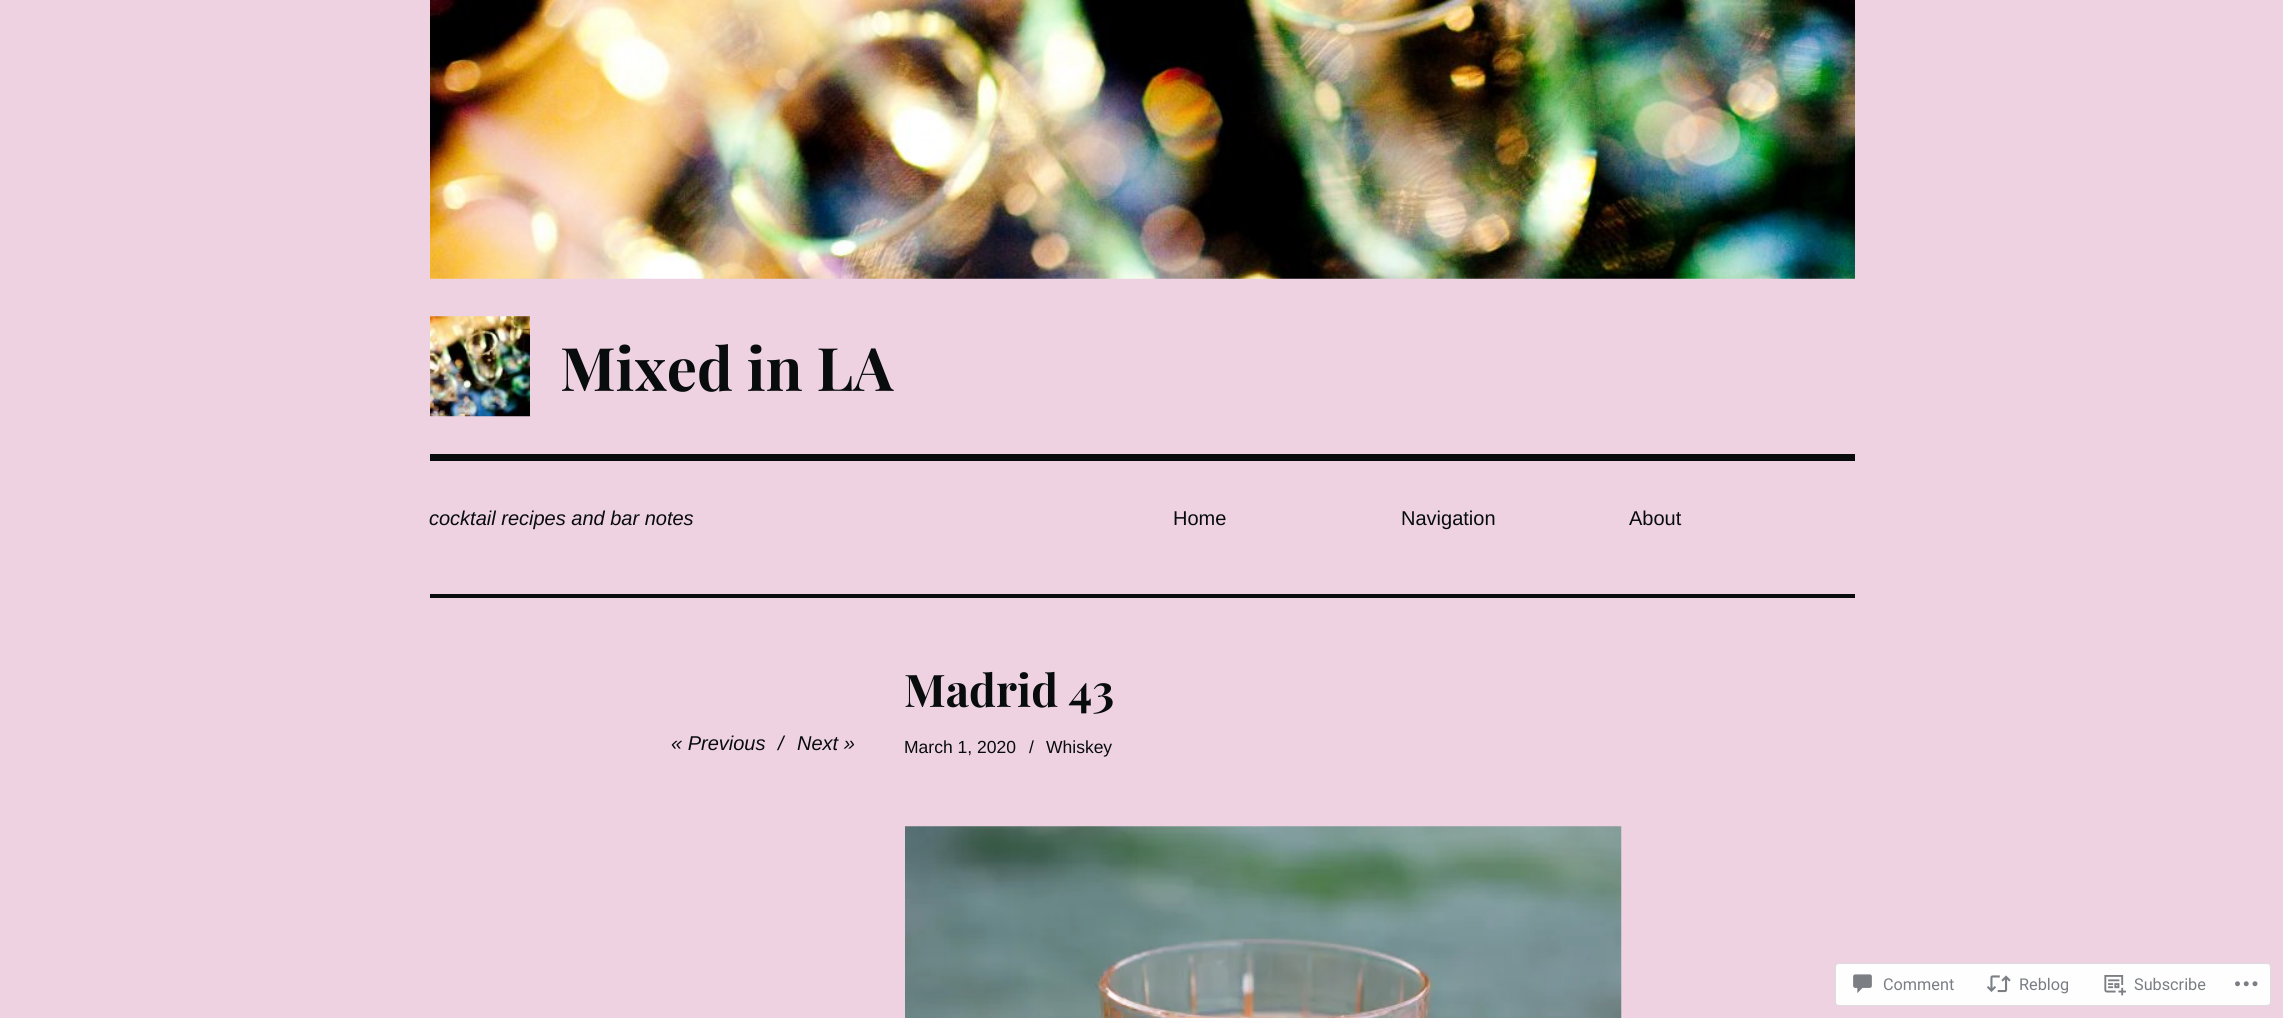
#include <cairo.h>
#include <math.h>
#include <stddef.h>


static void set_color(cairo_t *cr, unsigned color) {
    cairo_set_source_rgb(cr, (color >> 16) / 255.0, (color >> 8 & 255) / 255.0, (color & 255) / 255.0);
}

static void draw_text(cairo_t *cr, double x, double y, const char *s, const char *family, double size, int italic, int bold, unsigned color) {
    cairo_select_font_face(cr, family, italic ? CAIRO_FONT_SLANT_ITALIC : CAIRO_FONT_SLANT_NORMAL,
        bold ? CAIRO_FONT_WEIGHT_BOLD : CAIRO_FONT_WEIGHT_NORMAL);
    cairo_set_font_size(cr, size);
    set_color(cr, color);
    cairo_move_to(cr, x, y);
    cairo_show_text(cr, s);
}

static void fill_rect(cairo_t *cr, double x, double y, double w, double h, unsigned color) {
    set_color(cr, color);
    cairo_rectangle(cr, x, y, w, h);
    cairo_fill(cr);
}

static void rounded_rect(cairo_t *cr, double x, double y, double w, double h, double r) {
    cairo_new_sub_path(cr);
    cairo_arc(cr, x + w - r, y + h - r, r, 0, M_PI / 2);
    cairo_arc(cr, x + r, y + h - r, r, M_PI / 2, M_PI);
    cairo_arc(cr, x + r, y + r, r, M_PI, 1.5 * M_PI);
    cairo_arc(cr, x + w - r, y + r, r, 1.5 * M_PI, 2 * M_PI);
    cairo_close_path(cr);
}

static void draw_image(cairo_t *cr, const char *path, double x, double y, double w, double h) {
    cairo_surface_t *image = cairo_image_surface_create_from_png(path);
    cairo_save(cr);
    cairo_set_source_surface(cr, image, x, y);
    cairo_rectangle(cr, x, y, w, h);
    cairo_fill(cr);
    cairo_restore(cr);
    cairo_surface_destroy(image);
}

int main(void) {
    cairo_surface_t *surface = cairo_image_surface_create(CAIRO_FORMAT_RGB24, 2283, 1018);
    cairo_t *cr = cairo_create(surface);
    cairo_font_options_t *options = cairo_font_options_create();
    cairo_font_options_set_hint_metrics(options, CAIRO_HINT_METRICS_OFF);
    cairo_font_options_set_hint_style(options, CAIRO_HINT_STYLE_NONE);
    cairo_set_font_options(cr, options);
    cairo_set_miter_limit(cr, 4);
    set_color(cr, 0xEED2E1);
    cairo_paint(cr);
    draw_image(cr, "assets/img1.png", 430, 0, 1425, 279);
    fill_rect(cr, 430, 454, 1425, 7, 0x080C0D);
    draw_image(cr, "assets/img2.png", 430, 316, 100, 101);
    draw_text(cr, 560, 391, "Mixed in LA", "Playfair Display", 60, 0, 1, 0x080C0D);
    draw_text(cr, 429, 525, "cocktail recipes and bar notes", "Arimo", 20, 1, 0, 0x080C0D);
    draw_text(cr, 1173, 525, "Home", "Arimo", 20, 0, 0, 0x080C0D);
    draw_text(cr, 1401, 525, "Navigation", "Arimo", 20, 0, 0, 0x080C0D);
    draw_text(cr, 1629, 525, "About", "Arimo", 20, 0, 0, 0x080C0D);
    fill_rect(cr, 430, 594, 1425, 4, 0x080C0D);
    draw_text(cr, 904, 707, "Madrid 43", "Playfair Display", 45, 0, 1, 0x080C0D);
    draw_text(cr, 671, 750, "« Previous", "Arimo", 20, 1, 0, 0x080C0D);
    draw_text(cr, 778, 750, "/", "Arimo", 20, 1, 0, 0x080C0D);
    draw_text(cr, 797, 750, "Next »", "Arimo", 20, 1, 0, 0x080C0D);
    draw_text(cr, 904, 753, "March 1, 2020", "Arimo", 17.5, 0, 0, 0x080C0D);
    draw_text(cr, 1029, 753, "/", "Arimo", 17.5, 0, 0, 0x080C0D);
    draw_text(cr, 1046, 753, "Whiskey", "Arimo", 17.5, 0, 0, 0x080C0D);
    draw_image(cr, "assets/img3.png", 905, 826, 717, 192);
    set_color(cr, 0xFFFEFE);
    rounded_rect(cr, 1835.5, 963.5, 435, 42, 3.5);
    cairo_fill_preserve(cr);
    set_color(cr, 0xDCDCDE);
    cairo_set_line_width(cr, 1);
    cairo_stroke(cr);
    draw_image(cr, "assets/img4.png", 1853, 974, 19, 19);
    draw_text(cr, 1883, 990, "Comment", "Roboto", 16.25, 0, 0, 0x7A7E84);
    draw_image(cr, "assets/img5.png", 1986, 975, 25, 18);
    draw_text(cr, 2019, 990, "Reblog", "Roboto", 16.25, 0, 0, 0x7A7E84);
    draw_image(cr, "assets/img6.png", 2104, 975, 22, 21);
    draw_text(cr, 2134, 990, "Subscribe", "Roboto", 16.25, 0, 0, 0x7A7E84);
    draw_image(cr, "assets/img7.png", 2235, 981, 23, 6);
    cairo_surface_write_to_png(surface, "output.png");
    cairo_font_options_destroy(options);
    cairo_destroy(cr);
    cairo_surface_destroy(surface);
    return 0;
}
